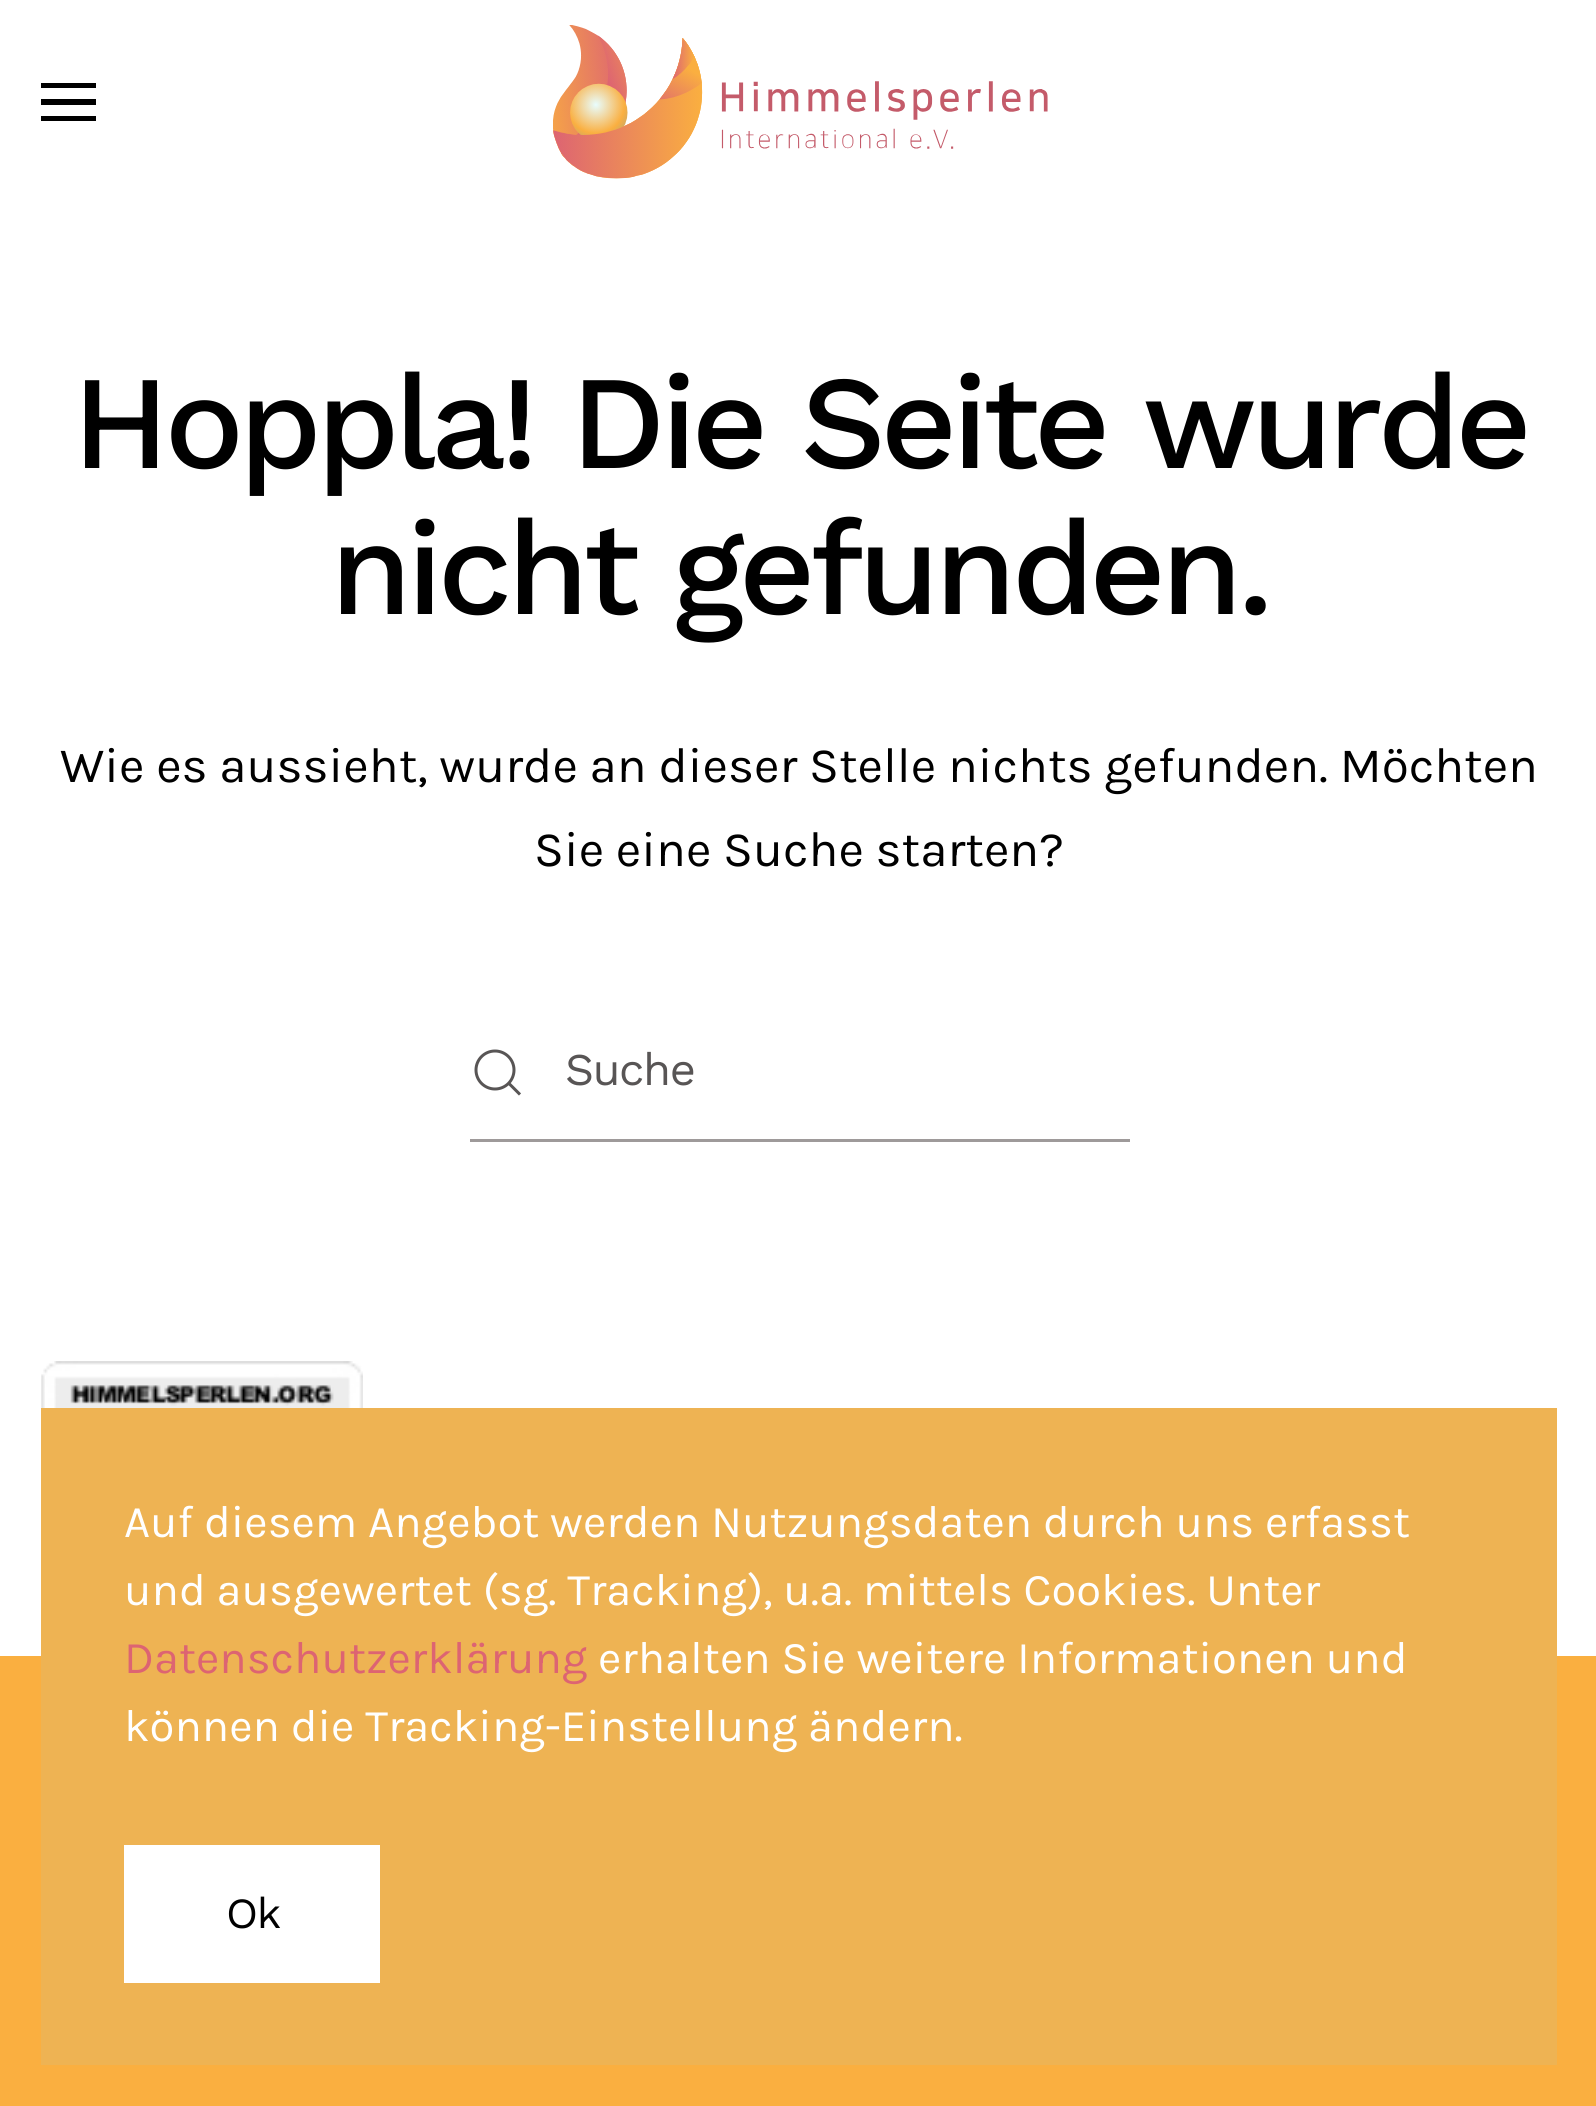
#include <cairo.h>
#include <math.h>
#include <stddef.h>


static void set_color(cairo_t *cr, unsigned color) {
    cairo_set_source_rgb(cr, (color >> 16) / 255.0, (color >> 8 & 255) / 255.0, (color & 255) / 255.0);
}

static void draw_text(cairo_t *cr, double x, double y, const char *s, const char *family, double size, int italic, int bold, unsigned color) {
    cairo_select_font_face(cr, family, italic ? CAIRO_FONT_SLANT_ITALIC : CAIRO_FONT_SLANT_NORMAL,
        bold ? CAIRO_FONT_WEIGHT_BOLD : CAIRO_FONT_WEIGHT_NORMAL);
    cairo_set_font_size(cr, size);
    set_color(cr, color);
    cairo_move_to(cr, x, y);
    cairo_show_text(cr, s);
}

static void draw_spaced(cairo_t *cr, double x, double y, const char *s, double letter, double word) {
    cairo_move_to(cr, x, y);
    while (*s) {
        char ch[5] = {0};
        int n = 0;
        do ch[n++] = *s++; while ((*s & 0xC0) == 0x80);
        cairo_show_text(cr, ch);
        cairo_rel_move_to(cr, letter + word * (*ch == ' '), 0);
    }
}

static void fill_rect(cairo_t *cr, double x, double y, double w, double h, unsigned color) {
    set_color(cr, color);
    cairo_rectangle(cr, x, y, w, h);
    cairo_fill(cr);
}

static void draw_image(cairo_t *cr, const char *path, double x, double y, double w, double h) {
    cairo_surface_t *image = cairo_image_surface_create_from_png(path);
    cairo_save(cr);
    cairo_set_source_surface(cr, image, x, y);
    cairo_rectangle(cr, x, y, w, h);
    cairo_fill(cr);
    cairo_restore(cr);
    cairo_surface_destroy(image);
}

int main(void) {
    cairo_surface_t *surface = cairo_image_surface_create(CAIRO_FORMAT_RGB24, 1596, 2106);
    cairo_t *cr = cairo_create(surface);
    cairo_font_options_t *options = cairo_font_options_create();
    cairo_font_options_set_hint_metrics(options, CAIRO_HINT_METRICS_OFF);
    cairo_font_options_set_hint_style(options, CAIRO_HINT_STYLE_NONE);
    cairo_set_font_options(cr, options);
    cairo_set_miter_limit(cr, 4);
    set_color(cr, 0xFFFFFF);
    cairo_paint(cr);
    fill_rect(cr, 41, 83, 55, 5, 0x000000);
    fill_rect(cr, 41, 99, 55, 6, 0x000000);
    fill_rect(cr, 41, 116, 55, 5, 0x000000);
    draw_image(cr, "assets/img1.png", 553, 25, 495, 154);
    cairo_select_font_face(cr, "Work Sans Medium", CAIRO_FONT_SLANT_NORMAL, CAIRO_FONT_WEIGHT_NORMAL);
    cairo_set_font_size(cr, 133);
    draw_spaced(cr, 72, 468, "Hoppla! Die Seite wurde", -5.5, 0);
    draw_spaced(cr, 330, 614, "nicht gefunden.", -5.5, 0);
    draw_text(cr, 60, 782, "Wie es aussieht, wurde an dieser Stelle nichts gefunden. Möchten", "Karla", 49.5, 0, 0, 0x000000);
    draw_text(cr, 534, 866, "Sie eine Suche starten?", "Karla", 49.5, 0, 0, 0x000000);
    cairo_new_path(cr);
    cairo_arc(cr, 495, 1070, 19, 0, 2 * M_PI);
    set_color(cr, 0x585555);
    cairo_set_line_width(cr, 3);
    cairo_stroke(cr);
    cairo_new_path(cr);
    cairo_move_to(cr, 509, 1083.5);
    cairo_line_to(cr, 520, 1094.5);
    cairo_close_path(cr);
    cairo_stroke(cr);
    fill_rect(cr, 470, 1139, 660, 3, 0x9E9A9A);
    cairo_select_font_face(cr, "Work Sans", CAIRO_FONT_SLANT_NORMAL, CAIRO_FONT_WEIGHT_NORMAL);
    cairo_set_font_size(cr, 45.4);
    set_color(cr, 0x585555);
    draw_spaced(cr, 565, 1085, "Suche", -1.5, 0);
    draw_image(cr, "assets/img2.png", 41, 1361, 322, 47);
    fill_rect(cr, 0, 1656, 1596, 450, 0xFAAF40);
    fill_rect(cr, 41, 1408, 1516, 657, 0xEEB353);
    draw_text(cr, 124, 1537, "Auf diesem Angebot werden Nutzungsdaten durch uns erfasst", "Karla", 45.4, 0, 0, 0xFFFFFF);
    draw_text(cr, 124, 1605, "und ausgewertet (sg. Tracking), u.a. mittels Cookies. Unter", "Karla", 45.4, 0, 0, 0xFFFFFF);
    draw_text(cr, 124, 1673, "Datenschutzerklärung", "Karla", 45.4, 0, 0, 0xDD6472);
    draw_text(cr, 598, 1673, "erhalten Sie weitere Informationen und", "Karla", 45.4, 0, 0, 0xFFFFFF);
    draw_text(cr, 124, 1741, "können die Tracking-Einstellung ändern.", "Karla", 45.4, 0, 0, 0xFFFFFF);
    fill_rect(cr, 124, 1845, 256, 138, 0xFFFFFF);
    cairo_select_font_face(cr, "Work Sans", CAIRO_FONT_SLANT_NORMAL, CAIRO_FONT_WEIGHT_NORMAL);
    cairo_set_font_size(cr, 43);
    set_color(cr, 0x000000);
    draw_spaced(cr, 226, 1928, "Ok", -1.5, 0);
    cairo_surface_write_to_png(surface, "output.png");
    cairo_font_options_destroy(options);
    cairo_destroy(cr);
    cairo_surface_destroy(surface);
    return 0;
}
